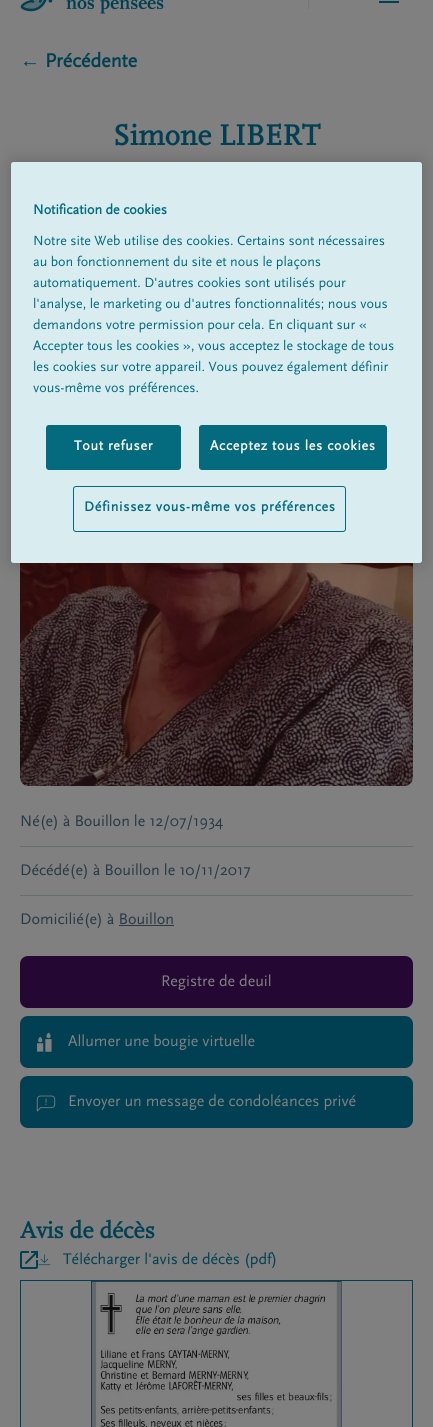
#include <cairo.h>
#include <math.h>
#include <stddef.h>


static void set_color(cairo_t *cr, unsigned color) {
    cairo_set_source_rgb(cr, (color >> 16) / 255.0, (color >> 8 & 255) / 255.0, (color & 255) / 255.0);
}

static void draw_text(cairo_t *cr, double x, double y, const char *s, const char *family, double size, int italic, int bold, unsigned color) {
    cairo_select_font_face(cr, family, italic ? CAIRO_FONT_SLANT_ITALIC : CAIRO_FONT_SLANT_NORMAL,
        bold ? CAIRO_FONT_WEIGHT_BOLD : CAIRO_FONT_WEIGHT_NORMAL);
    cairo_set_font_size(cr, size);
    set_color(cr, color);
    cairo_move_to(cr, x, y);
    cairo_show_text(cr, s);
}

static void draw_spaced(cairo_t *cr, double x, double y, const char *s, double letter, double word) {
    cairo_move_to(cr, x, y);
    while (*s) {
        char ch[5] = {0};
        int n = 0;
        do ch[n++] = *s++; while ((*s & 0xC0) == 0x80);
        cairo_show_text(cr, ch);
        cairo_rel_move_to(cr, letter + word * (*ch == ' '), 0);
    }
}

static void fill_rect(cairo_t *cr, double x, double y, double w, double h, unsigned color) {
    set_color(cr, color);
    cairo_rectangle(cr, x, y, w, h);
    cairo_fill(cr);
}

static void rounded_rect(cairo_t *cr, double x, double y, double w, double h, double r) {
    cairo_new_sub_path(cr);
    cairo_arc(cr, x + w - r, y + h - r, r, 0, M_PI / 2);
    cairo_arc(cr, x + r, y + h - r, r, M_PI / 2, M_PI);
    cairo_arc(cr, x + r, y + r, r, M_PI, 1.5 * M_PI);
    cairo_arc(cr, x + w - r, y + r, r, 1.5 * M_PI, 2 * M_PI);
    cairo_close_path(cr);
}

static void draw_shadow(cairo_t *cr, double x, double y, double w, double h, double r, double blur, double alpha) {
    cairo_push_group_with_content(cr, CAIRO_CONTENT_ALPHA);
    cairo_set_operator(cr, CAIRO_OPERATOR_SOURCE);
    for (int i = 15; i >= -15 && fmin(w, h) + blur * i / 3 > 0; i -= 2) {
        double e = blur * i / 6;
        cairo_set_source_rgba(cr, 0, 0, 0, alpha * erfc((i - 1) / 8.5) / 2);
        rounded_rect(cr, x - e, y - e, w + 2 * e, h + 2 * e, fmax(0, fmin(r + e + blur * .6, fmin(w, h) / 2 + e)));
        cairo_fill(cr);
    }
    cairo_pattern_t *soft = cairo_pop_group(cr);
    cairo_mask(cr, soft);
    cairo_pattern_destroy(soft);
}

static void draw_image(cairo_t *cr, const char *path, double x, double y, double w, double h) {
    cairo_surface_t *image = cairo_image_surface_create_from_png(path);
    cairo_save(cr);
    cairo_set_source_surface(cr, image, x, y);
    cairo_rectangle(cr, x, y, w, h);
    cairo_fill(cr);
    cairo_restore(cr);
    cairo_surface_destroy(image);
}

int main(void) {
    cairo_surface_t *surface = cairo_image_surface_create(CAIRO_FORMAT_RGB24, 433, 1427);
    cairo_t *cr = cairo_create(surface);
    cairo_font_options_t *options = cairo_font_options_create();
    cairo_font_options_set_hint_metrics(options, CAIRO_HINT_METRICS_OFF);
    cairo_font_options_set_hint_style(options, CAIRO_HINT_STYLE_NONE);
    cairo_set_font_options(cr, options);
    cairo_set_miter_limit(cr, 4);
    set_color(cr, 0x808080);
    cairo_paint(cr);
    draw_image(cr, "assets/img1.png", 20, 0, 144, 14);
    fill_rect(cr, 308, 0, 1, 9, 0x767676);
    fill_rect(cr, 379, 1, 20, 2, 0x004052);
    draw_text(cr, 20, 67, "←", "Liberation Sans", 20, 0, 1, 0x004052);
    draw_text(cr, 45, 67, "Précédente", "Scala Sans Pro", 20, 0, 1, 0x004052);
    draw_text(cr, 113, 145, "Simone LIBERT", "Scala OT", 30, 0, 1, 0x004052);
    draw_image(cr, "assets/img2.png", 20, 563, 393, 223);
    fill_rect(cr, 20, 846, 393, 1, 0x696E71);
    draw_text(cr, 20, 826, "Né(e) à Bouillon le 12/07/1934", "Scala Sans Pro", 16, 0, 0, 0x273A45);
    fill_rect(cr, 20, 895, 393, 1, 0x696E71);
    draw_text(cr, 20, 875, "Décédé(e) à Bouillon le 10/11/2017", "Scala Sans Pro", 16, 0, 0, 0x273A45);
    draw_text(cr, 20, 924, "Domicilié(e) à Bouillon", "Scala Sans Pro", 16, 0, 0, 0x273A45);
    fill_rect(cr, 119, 925, 55, 1, 0x273A45);
    set_color(cr, 0x240733);
    rounded_rect(cr, 20, 956, 393, 52, 8);
    cairo_fill(cr);
    draw_text(cr, 161, 986, "Registre de deuil", "Scala Sans Pro", 16, 0, 0, 0x808080);
    set_color(cr, 0x004052);
    rounded_rect(cr, 20, 1016, 393, 52, 8);
    cairo_fill(cr);
    draw_image(cr, "assets/img3.png", 37, 1032, 15, 20);
    draw_text(cr, 68, 1046, "Allumer une bougie virtuelle", "Scala Sans Pro", 16, 0, 0, 0x808080);
    set_color(cr, 0x004052);
    rounded_rect(cr, 20, 1076, 393, 52, 8);
    cairo_fill(cr);
    draw_image(cr, "assets/img4.png", 36, 1095, 20, 17);
    draw_text(cr, 68, 1106, "Envoyer un message de condoléances privé", "Scala Sans Pro", 16, 0, 0, 0x808080);
    draw_text(cr, 20, 1238, "Avis de décès", "Scala OT", 24, 0, 1, 0x004052);
    draw_image(cr, "assets/img5.png", 20, 1251, 18, 18);
    draw_image(cr, "assets/img6.png", 38, 1254, 13, 12);
    draw_text(cr, 63, 1264, "Télécharger l'avis de décès (pdf)", "Scala Sans Pro", 16, 0, 0, 0x004052);
    cairo_rectangle(cr, 20.5, 1280.5, 392, 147);
    cairo_set_line_width(cr, 1);
    cairo_stroke(cr);
    draw_image(cr, "assets/img7.png", 91, 1281, 251, 146);
    set_color(cr, 0x000000);
    draw_shadow(cr, 11, 162, 411, 401, 2.5, 9, 0.2);
    set_color(cr, 0xD9ECF0);
    rounded_rect(cr, 11, 162, 411, 401, 2.5);
    cairo_fill(cr);
    draw_text(cr, 33, 214, "Notification de cookies", "Scala Sans Pro", 14, 0, 1, 0x046B7F);
    draw_text(cr, 33, 245, "Notre site Web utilise des cookies. Certains sont nécessaires", "Scala Sans Pro", 14, 0, 0, 0x046B7F);
    draw_text(cr, 33, 266, "au bon fonctionnement du site et nous le plaçons", "Scala Sans Pro", 14, 0, 0, 0x046B7F);
    draw_text(cr, 33, 287, "automatiquement. D'autres cookies sont utilisés pour", "Scala Sans Pro", 14, 0, 0, 0x046B7F);
    draw_text(cr, 33, 308, "l'analyse, le marketing ou d'autres fonctionnalités; nous vous", "Scala Sans Pro", 14, 0, 0, 0x046B7F);
    draw_text(cr, 33, 329, "demandons votre permission pour cela. En cliquant sur «", "Scala Sans Pro", 14, 0, 0, 0x046B7F);
    draw_text(cr, 33, 350, "Accepter tous les cookies », vous acceptez le stockage de tous", "Scala Sans Pro", 14, 0, 0, 0x046B7F);
    draw_text(cr, 33, 371, "les cookies sur votre appareil. Vous pouvez également définir", "Scala Sans Pro", 14, 0, 0, 0x046B7F);
    draw_text(cr, 33, 392, "vous-même vos préférences.", "Scala Sans Pro", 14, 0, 0, 0x046B7F);
    rounded_rect(cr, 46.5, 425.5, 134, 44, 2.5);
    cairo_fill_preserve(cr);
    cairo_stroke(cr);
    cairo_select_font_face(cr, "Scala Sans Pro", CAIRO_FONT_SLANT_NORMAL, CAIRO_FONT_WEIGHT_BOLD);
    set_color(cr, 0xFFFFFF);
    draw_spaced(cr, 74, 450, "Tout refuser", 0.7, 0);
    set_color(cr, 0x046B7F);
    rounded_rect(cr, 199.5, 425.5, 187, 44, 2.5);
    cairo_fill_preserve(cr);
    cairo_stroke(cr);
    set_color(cr, 0xFFFFFF);
    draw_spaced(cr, 210, 450, "Acceptez tous les cookies", 0.7, 0);
    rounded_rect(cr, 73.5, 486.5, 272, 45, 2.5);
    set_color(cr, 0x046B7F);
    cairo_stroke(cr);
    draw_spaced(cr, 84, 511, "Définissez vous-même vos préférences", 0.7, 0);
    cairo_surface_write_to_png(surface, "output.png");
    cairo_font_options_destroy(options);
    cairo_destroy(cr);
    cairo_surface_destroy(surface);
    return 0;
}
